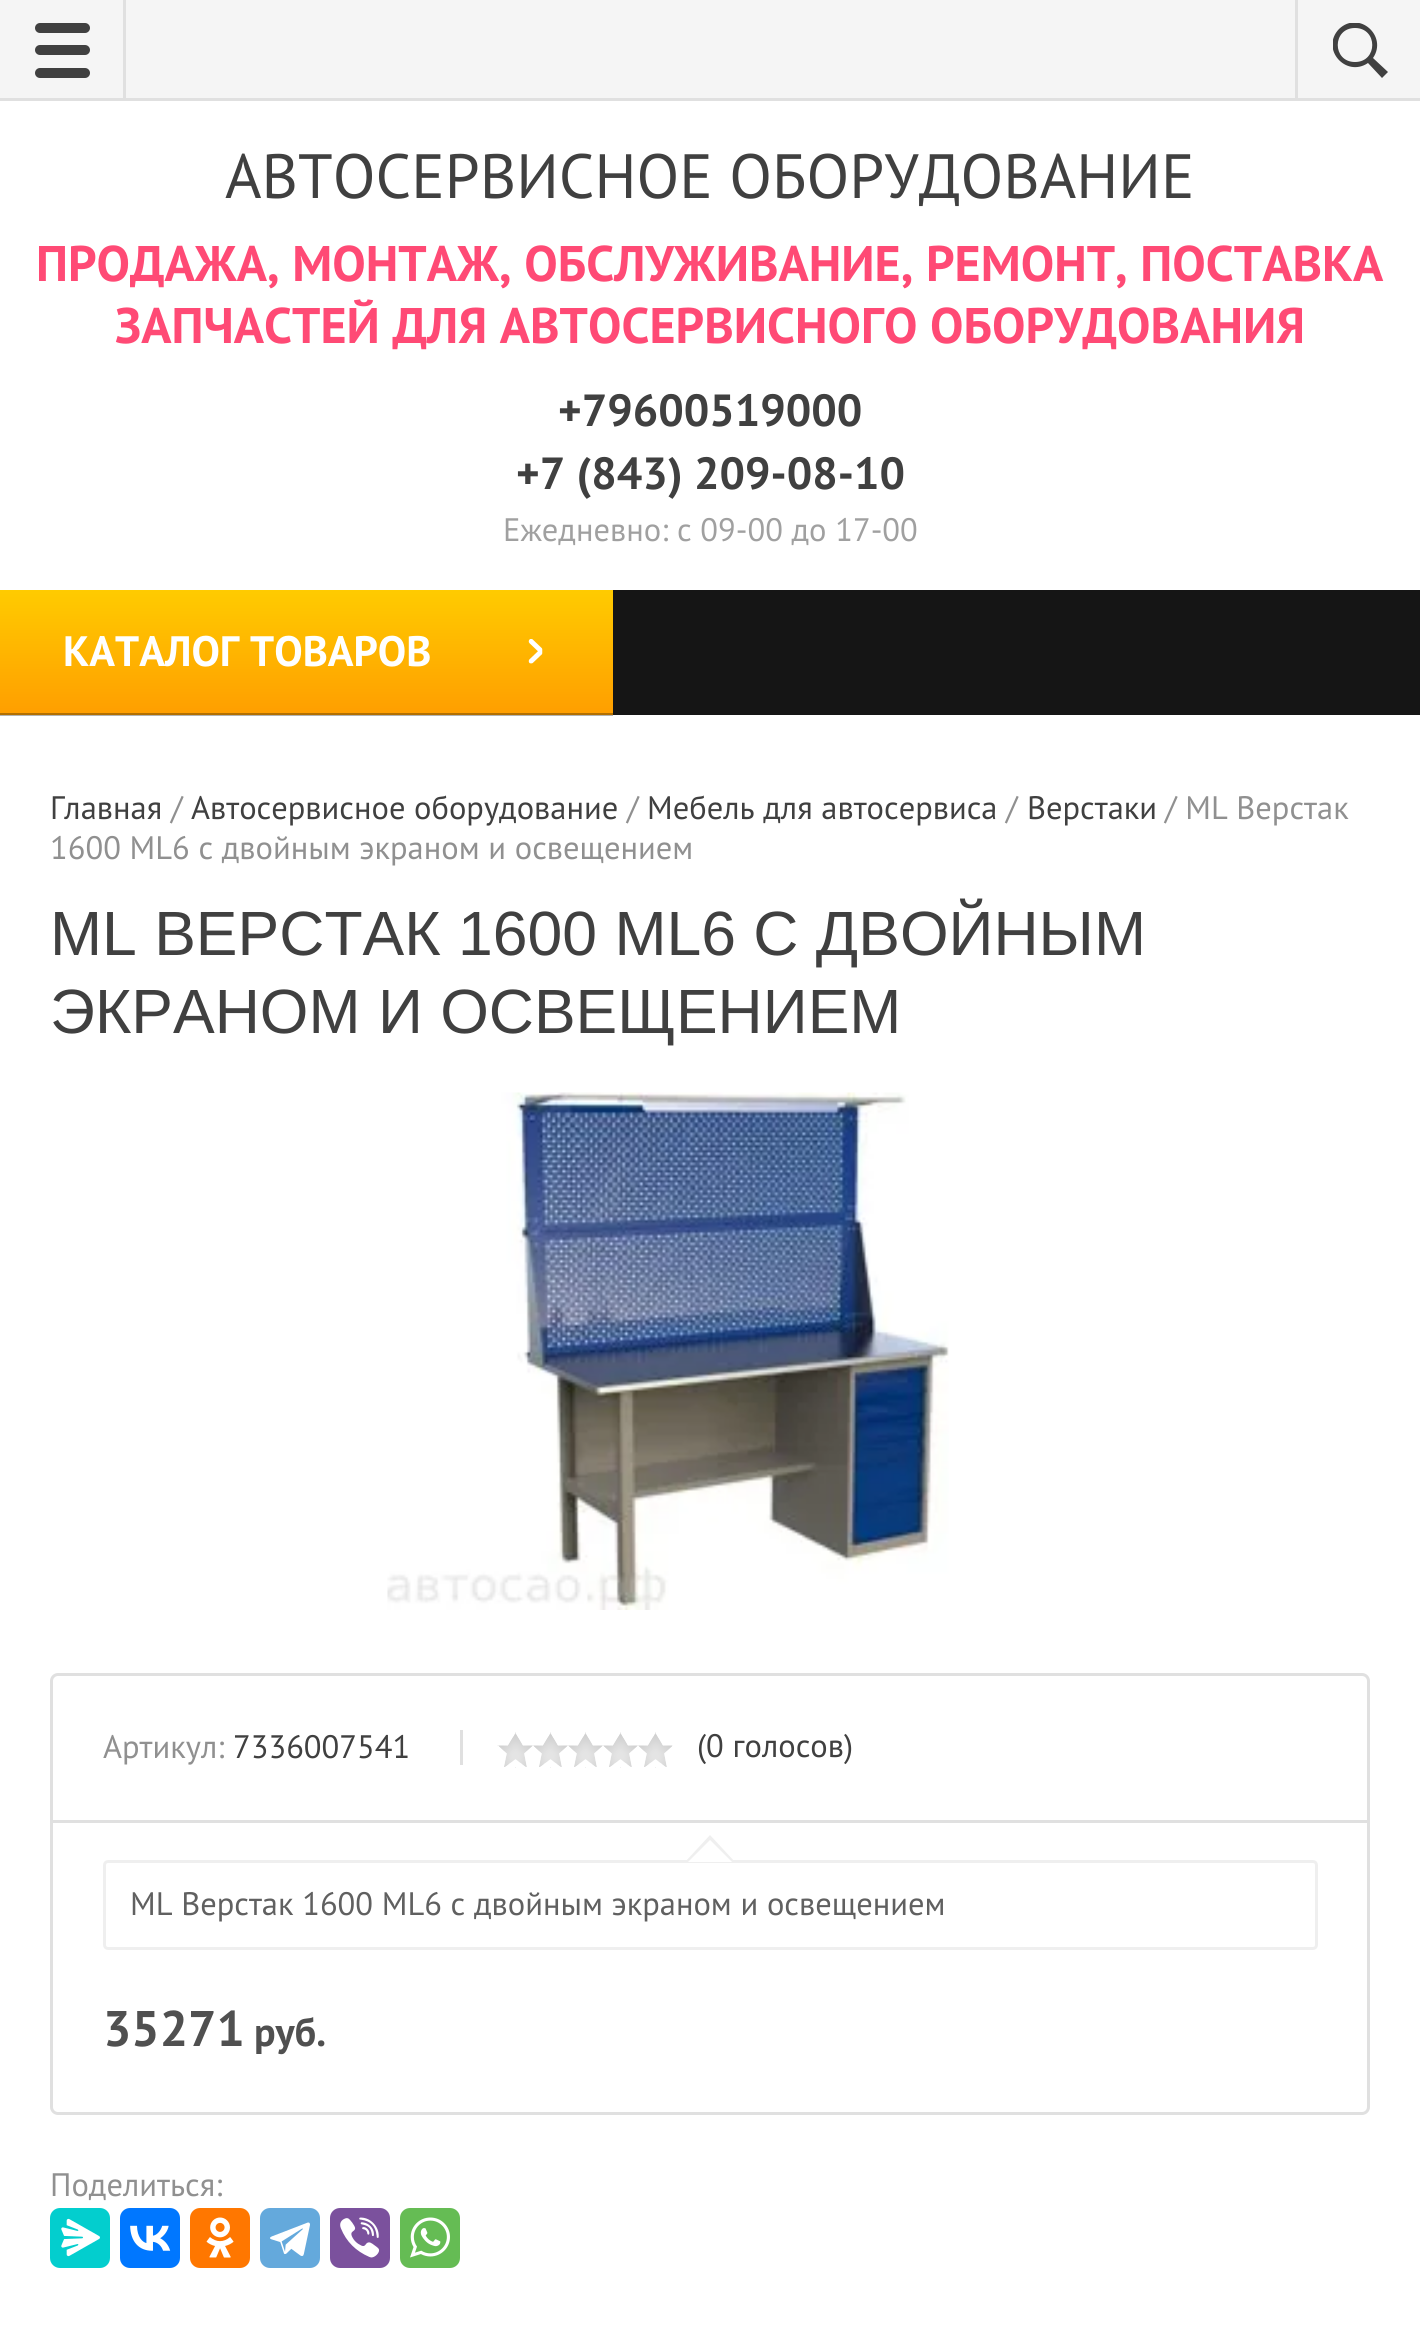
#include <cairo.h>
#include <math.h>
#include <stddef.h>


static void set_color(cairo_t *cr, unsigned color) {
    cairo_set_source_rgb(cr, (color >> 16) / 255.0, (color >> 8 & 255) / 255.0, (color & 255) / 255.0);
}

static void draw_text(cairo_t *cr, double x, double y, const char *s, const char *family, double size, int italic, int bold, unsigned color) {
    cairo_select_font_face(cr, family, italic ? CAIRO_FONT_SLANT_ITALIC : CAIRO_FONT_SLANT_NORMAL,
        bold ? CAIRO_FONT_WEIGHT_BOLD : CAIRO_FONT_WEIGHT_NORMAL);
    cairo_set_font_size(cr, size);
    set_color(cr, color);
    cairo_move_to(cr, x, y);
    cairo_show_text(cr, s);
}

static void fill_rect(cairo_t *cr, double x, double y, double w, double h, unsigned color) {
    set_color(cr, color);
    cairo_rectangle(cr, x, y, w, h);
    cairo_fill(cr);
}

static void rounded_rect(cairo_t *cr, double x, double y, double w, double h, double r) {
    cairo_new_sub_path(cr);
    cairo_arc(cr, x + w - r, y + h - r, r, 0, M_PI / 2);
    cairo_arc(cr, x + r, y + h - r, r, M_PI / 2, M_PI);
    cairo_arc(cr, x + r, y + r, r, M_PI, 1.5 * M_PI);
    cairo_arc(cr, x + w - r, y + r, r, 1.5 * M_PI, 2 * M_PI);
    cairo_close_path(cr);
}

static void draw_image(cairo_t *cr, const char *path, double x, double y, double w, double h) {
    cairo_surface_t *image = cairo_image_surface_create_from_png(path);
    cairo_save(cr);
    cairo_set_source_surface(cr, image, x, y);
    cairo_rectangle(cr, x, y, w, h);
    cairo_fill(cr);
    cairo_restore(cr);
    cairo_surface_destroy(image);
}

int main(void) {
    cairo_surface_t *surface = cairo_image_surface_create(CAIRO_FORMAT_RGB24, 1420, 2328);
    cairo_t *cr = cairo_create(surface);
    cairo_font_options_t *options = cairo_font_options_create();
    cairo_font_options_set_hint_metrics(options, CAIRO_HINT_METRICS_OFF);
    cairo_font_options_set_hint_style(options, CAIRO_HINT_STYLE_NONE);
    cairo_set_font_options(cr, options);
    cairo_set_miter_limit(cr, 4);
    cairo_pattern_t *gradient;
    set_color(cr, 0xFFFFFF);
    cairo_paint(cr);
    fill_rect(cr, 0, 715, 613, 1, 0xB3B3B3);
    fill_rect(cr, 0, 0, 1420, 98, 0xF5F5F5);
    fill_rect(cr, 0, 98, 1420, 3, 0xE0E0E0);
    fill_rect(cr, 123, 0, 3, 100, 0xE0E0E0);
    set_color(cr, 0x404040);
    rounded_rect(cr, 35, 23, 55, 10, 5);
    cairo_fill(cr);
    rounded_rect(cr, 35, 45, 55, 10, 5);
    cairo_fill(cr);
    rounded_rect(cr, 35, 68, 55, 10, 5);
    cairo_fill(cr);
    cairo_save(cr);
    cairo_rectangle(cr, 1333, 23, 55, 55);
    cairo_clip(cr);
    cairo_set_fill_rule(cr, CAIRO_FILL_RULE_EVEN_ODD);
    cairo_new_path(cr);
    cairo_move_to(cr, 1388, 72);
    cairo_line_to(cr, 1382, 78);
    cairo_line_to(cr, 1368, 63);
    cairo_curve_to(cr, 1346, 78, 1320, 49, 1339, 29);
    cairo_curve_to(cr, 1359, 10, 1388, 36, 1373, 58);
    cairo_close_path(cr);
    cairo_move_to(cr, 1355, 28);
    cairo_curve_to(cr, 1332, 28, 1332, 62, 1355, 62);
    cairo_curve_to(cr, 1378, 62, 1378, 28, 1355, 28);
    cairo_close_path(cr);
    cairo_fill(cr);
    cairo_restore(cr);
    fill_rect(cr, 1295, 0, 3, 100, 0xE0E0E0);
    draw_text(cr, 225, 198, "АВТОСЕРВИСНОЕ ОБОРУДОВАНИЕ", "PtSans", 62.5, 0, 0, 0x404040);
    draw_text(cr, 36, 281, "ПРОДАЖА, МОНТАЖ, ОБСЛУЖИВАНИЕ, РЕМОНТ, ПОСТАВКА", "PtSans", 50, 0, 1, 0xFF4A75);
    draw_text(cr, 115, 343, "ЗАПЧАСТЕЙ ДЛЯ АВТОСЕРВИСНОГО ОБОРУДОВАНИЯ", "PtSans", 50, 0, 1, 0xFF4A75);
    draw_text(cr, 558, 426, "+79600519000", "PtSans", 45, 0, 1, 0x404040);
    draw_text(cr, 516, 489, "+7 (843) 209-08-10", "PtSans", 45, 0, 1, 0x404040);
    draw_text(cr, 503, 541, "Ежедневно: с 09-00 до 17-00", "PtSans", 32.5, 0, 0, 0xA0A0A0);
    fill_rect(cr, 613, 590, 807, 125, 0x151515);
    gradient = cairo_pattern_create_linear(306, 715, 306, 590);
    cairo_pattern_add_color_stop_rgba(gradient, 0, 1, 0.62, 0, 1);
    cairo_pattern_add_color_stop_rgba(gradient, 1, 1, 0.796, 0, 1);
    cairo_set_source(cr, gradient);
    cairo_pattern_destroy(gradient);
    cairo_rectangle(cr, 0, 590, 613, 123);
    cairo_fill(cr);
    gradient = cairo_pattern_create_linear(306, 715, 306, 590);
    cairo_pattern_add_color_stop_rgba(gradient, 0, 0.702, 0.435, 0, 1);
    cairo_pattern_add_color_stop_rgba(gradient, 1, 0.702, 0.557, 0, 1);
    cairo_set_source(cr, gradient);
    cairo_pattern_destroy(gradient);
    cairo_rectangle(cr, 0, 713, 613, 2);
    cairo_fill(cr);
    draw_text(cr, 63, 666, "КАТАЛОГ ТОВАРОВ", "PtSans", 42.5, 0, 1, 0xFFFFFF);
    draw_image(cr, "assets/img1.png", 528, 639, 15, 25);
    draw_text(cr, 50, 819, "Главная", "PtSans", 32.5, 0, 0, 0x404040);
    draw_text(cr, 171, 819, "/", "PtSans", 32.5, 0, 0, 0x909090);
    draw_text(cr, 191, 819, "Автосервисное оборудование", "PtSans", 32.5, 0, 0, 0x404040);
    draw_text(cr, 627, 819, "/", "PtSans", 32.5, 0, 0, 0x909090);
    draw_text(cr, 647, 819, "Мебель для автосервиса", "PtSans", 32.5, 0, 0, 0x404040);
    draw_text(cr, 1006, 819, "/", "PtSans", 32.5, 0, 0, 0x909090);
    draw_text(cr, 1027, 819, "Верстаки", "PtSans", 32.5, 0, 0, 0x404040);
    draw_text(cr, 1165, 819, "/ ML Верстак", "PtSans", 32.5, 0, 0, 0x909090);
    draw_text(cr, 50, 859, "1600 ML6 с двойным экраном и освещением", "PtSans", 32.5, 0, 0, 0x909090);
    draw_text(cr, 50, 955, "ML ВЕРСТАК 1600 ML6 С ДВОЙНЫМ", "Liberation Sans", 62.5, 0, 0, 0x404040);
    draw_text(cr, 50, 1033, "ЭКРАНОМ И ОСВЕЩЕНИЕМ", "Liberation Sans", 62.5, 0, 0, 0x404040);
    draw_image(cr, "assets/img2.png", 387, 1092, 562, 518);
    rounded_rect(cr, 51.5, 1674.5, 1317, 439, 6.5);
    set_color(cr, 0xE0E0E0);
    cairo_set_line_width(cr, 3);
    cairo_stroke(cr);
    fill_rect(cr, 53, 1820, 1315, 3, 0xE0E0E0);
    fill_rect(cr, 460, 1730, 3, 35, 0xE0E0E0);
    draw_text(cr, 103, 1758, "Артикул:", "PtSans", 32.5, 0, 0, 0x909090);
    draw_text(cr, 233, 1758, "7336007541", "PtSans", 32.5, 0, 0, 0x404040);
    draw_image(cr, "assets/img3.png", 497, 1732, 176, 36);
    draw_text(cr, 697, 1757, "(0 голосов)", "PtSans", 32.5, 0, 0, 0x404040);
    rounded_rect(cr, 104.5, 1861.5, 1212, 87, 3.5);
    set_color(cr, 0xEFEFEF);
    cairo_stroke(cr);
    cairo_new_path(cr);
    cairo_move_to(cr, 735, 1862);
    cairo_line_to(cr, 685, 1862);
    cairo_line_to(cr, 710, 1835);
    cairo_close_path(cr);
    cairo_fill(cr);
    set_color(cr, 0xFFFFFF);
    cairo_new_path(cr);
    cairo_move_to(cr, 732, 1862);
    cairo_line_to(cr, 688, 1862);
    cairo_line_to(cr, 710, 1840);
    cairo_close_path(cr);
    cairo_fill(cr);
    draw_text(cr, 130, 1915, "ML Верстак 1600 ML6 с двойным экраном и освещением", "PtSans", 32.5, 0, 0, 0x606060);
    draw_text(cr, 103, 2046, "35271", "PtSans", 50, 0, 1, 0x505050);
    draw_text(cr, 254, 2046, "руб.", "PtSans", 40, 0, 1, 0x505050);
    draw_text(cr, 50, 2196, "Поделиться:", "PtSans", 32.5, 0, 0, 0x909090);
    set_color(cr, 0x03CECE);
    rounded_rect(cr, 50, 2208, 60, 60, 10);
    cairo_fill(cr);
    draw_image(cr, "assets/img4.png", 61, 2218, 39, 39);
    set_color(cr, 0x0077FF);
    rounded_rect(cr, 120, 2208, 60, 60, 10);
    cairo_fill(cr);
    draw_image(cr, "assets/img5.png", 130, 2225, 41, 26);
    set_color(cr, 0xFF7700);
    rounded_rect(cr, 190, 2208, 60, 60, 10);
    cairo_fill(cr);
    draw_image(cr, "assets/img6.png", 206, 2217, 28, 41);
    set_color(cr, 0x64A9DC);
    rounded_rect(cr, 260, 2208, 60, 60, 10);
    cairo_fill(cr);
    draw_image(cr, "assets/img7.png", 270, 2222, 40, 34);
    set_color(cr, 0x7B519D);
    rounded_rect(cr, 330, 2208, 60, 60, 10);
    cairo_fill(cr);
    draw_image(cr, "assets/img8.png", 340, 2217, 40, 41);
    set_color(cr, 0x65BC54);
    rounded_rect(cr, 400, 2208, 60, 60, 10);
    cairo_fill(cr);
    draw_image(cr, "assets/img9.png", 410, 2217, 40, 41);
    cairo_surface_write_to_png(surface, "output.png");
    cairo_font_options_destroy(options);
    cairo_destroy(cr);
    cairo_surface_destroy(surface);
    return 0;
}
